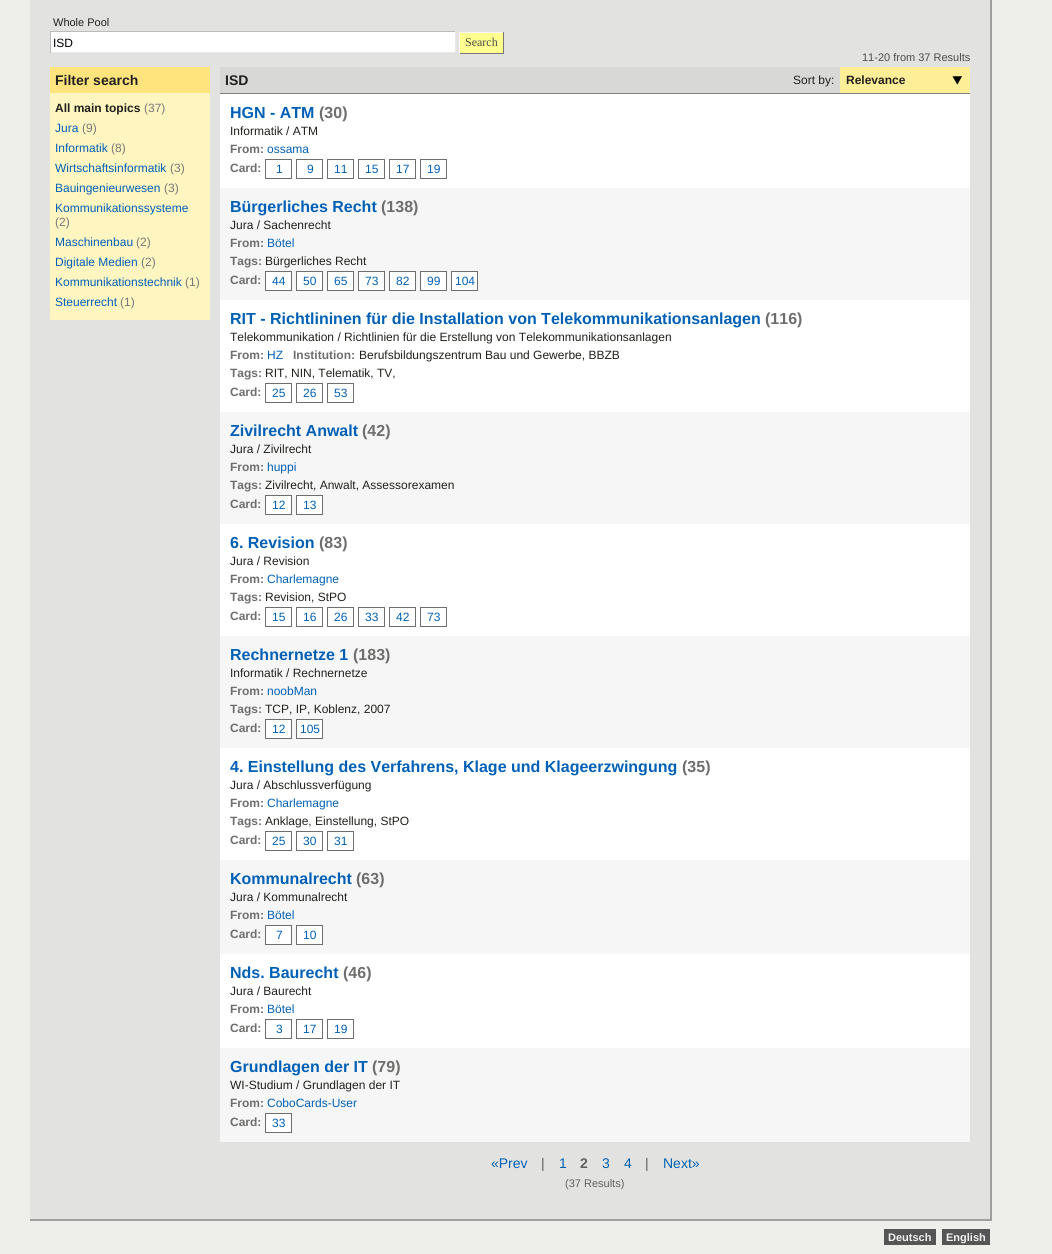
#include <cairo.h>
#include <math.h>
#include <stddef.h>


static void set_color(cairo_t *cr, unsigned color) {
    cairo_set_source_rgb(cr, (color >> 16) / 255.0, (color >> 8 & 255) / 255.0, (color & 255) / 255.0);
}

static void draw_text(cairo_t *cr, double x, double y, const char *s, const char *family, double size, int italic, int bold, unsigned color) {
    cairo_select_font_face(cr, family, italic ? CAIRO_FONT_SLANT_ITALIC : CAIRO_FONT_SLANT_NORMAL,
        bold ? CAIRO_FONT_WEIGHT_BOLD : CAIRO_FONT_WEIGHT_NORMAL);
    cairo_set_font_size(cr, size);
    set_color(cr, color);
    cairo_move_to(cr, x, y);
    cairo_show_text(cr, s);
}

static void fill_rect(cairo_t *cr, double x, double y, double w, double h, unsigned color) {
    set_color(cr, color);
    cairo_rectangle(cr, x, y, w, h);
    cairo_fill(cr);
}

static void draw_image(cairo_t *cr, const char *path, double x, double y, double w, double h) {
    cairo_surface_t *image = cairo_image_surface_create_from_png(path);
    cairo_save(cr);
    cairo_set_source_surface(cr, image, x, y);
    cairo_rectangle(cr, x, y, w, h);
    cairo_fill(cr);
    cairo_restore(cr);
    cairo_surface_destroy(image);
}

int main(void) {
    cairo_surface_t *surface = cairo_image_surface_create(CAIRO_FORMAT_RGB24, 1052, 1254);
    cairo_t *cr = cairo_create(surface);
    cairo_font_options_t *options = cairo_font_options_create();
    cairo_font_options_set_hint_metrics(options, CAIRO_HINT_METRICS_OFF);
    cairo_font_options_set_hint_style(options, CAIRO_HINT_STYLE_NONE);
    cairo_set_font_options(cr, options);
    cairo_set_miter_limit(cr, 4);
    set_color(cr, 0xEEEFEB);
    cairo_paint(cr);
    fill_rect(cr, 30, 0, 960, 1219, 0xE2E3E0);
    fill_rect(cr, 990, 0, 2, 1221, 0x9F9F9F);
    fill_rect(cr, 30, 1219, 962, 2, 0x9F9F9F);
    draw_text(cr, 53, 26, "Whole Pool", "Liberation Sans", 11, 0, 0, 0x21201C);
    fill_rect(cr, 51, 32, 404, 20, 0xFFFFFF);
    fill_rect(cr, 50, 31, 406, 1, 0xBBBBBA);
    fill_rect(cr, 455, 31, 1, 22, 0xE8E9E7);
    fill_rect(cr, 50, 52, 406, 1, 0xE8E9E7);
    fill_rect(cr, 50, 31, 1, 22, 0xBBBBBA);
    draw_text(cr, 53, 47, "ISD", "Liberation Sans", 12, 0, 0, 0x000000);
    fill_rect(cr, 460, 33, 43, 20, 0xFFFF90);
    fill_rect(cr, 459, 32, 45, 1, 0xF6F6F6);
    fill_rect(cr, 503, 32, 1, 22, 0x777876);
    fill_rect(cr, 459, 53, 45, 1, 0x777876);
    fill_rect(cr, 459, 32, 1, 22, 0xF6F6F6);
    draw_text(cr, 465, 46, "Search", "Liberation Serif", 12, 0, 0, 0x4B4C49);
    fill_rect(cr, 50, 67, 160, 26, 0xFFE47E);
    draw_text(cr, 55, 85, "Filter search", "Liberation Sans", 14, 0, 1, 0x21201C);
    fill_rect(cr, 50, 93, 160, 227, 0xFFF5C1);
    draw_text(cr, 55, 112, "All main topics", "Liberation Sans", 12, 0, 1, 0x21201C);
    draw_text(cr, 144, 112, "(37)", "Liberation Sans", 12, 0, 0, 0x777876);
    draw_text(cr, 55, 132, "Jura", "Liberation Sans", 12, 0, 0, 0x0060B6);
    draw_text(cr, 82, 132, "(9)", "Liberation Sans", 12, 0, 0, 0x777876);
    draw_text(cr, 55, 152, "Informatik", "Liberation Sans", 12, 0, 0, 0x0060B6);
    draw_text(cr, 111, 152, "(8)", "Liberation Sans", 12, 0, 0, 0x777876);
    draw_text(cr, 55, 172, "Wirtschaftsinformatik", "Liberation Sans", 12, 0, 0, 0x0060B6);
    draw_text(cr, 170, 172, "(3)", "Liberation Sans", 12, 0, 0, 0x777876);
    draw_text(cr, 55, 192, "Bauingenieurwesen", "Liberation Sans", 12, 0, 0, 0x0060B6);
    draw_text(cr, 164, 192, "(3)", "Liberation Sans", 12, 0, 0, 0x777876);
    draw_text(cr, 55, 212, "Kommunikationssysteme", "Liberation Sans", 12, 0, 0, 0x0060B6);
    draw_text(cr, 55, 226, "(2)", "Liberation Sans", 12, 0, 0, 0x777876);
    draw_text(cr, 55, 246, "Maschinenbau", "Liberation Sans", 12, 0, 0, 0x0060B6);
    draw_text(cr, 136, 246, "(2)", "Liberation Sans", 12, 0, 0, 0x777876);
    draw_text(cr, 55, 266, "Digitale Medien", "Liberation Sans", 12, 0, 0, 0x0060B6);
    draw_text(cr, 141, 266, "(2)", "Liberation Sans", 12, 0, 0, 0x777876);
    draw_text(cr, 55, 286, "Kommunikationstechnik", "Liberation Sans", 12, 0, 0, 0x0060B6);
    draw_text(cr, 185, 286, "(1)", "Liberation Sans", 12, 0, 0, 0x777876);
    draw_text(cr, 55, 306, "Steuerrecht", "Liberation Sans", 12, 0, 0, 0x0060B6);
    draw_text(cr, 120, 306, "(1)", "Liberation Sans", 12, 0, 0, 0x777876);
    draw_text(cr, 862, 61, "11-20 from 37 Results", "Liberation Sans", 11, 0, 0, 0x4B4C49);
    fill_rect(cr, 220, 67, 620, 26, 0xD8D9D7);
    fill_rect(cr, 220, 93, 750, 1, 0x80807F);
    draw_text(cr, 225, 85, "ISD", "Liberation Sans", 14, 0, 1, 0x21201C);
    draw_text(cr, 793, 84, "Sort by:", "Liberation Sans", 12, 0, 0, 0x21201C);
    fill_rect(cr, 840, 67, 130, 26, 0xFFEE98);
    draw_text(cr, 846, 84, "Relevance", "Liberation Sans", 12, 0, 1, 0x21201C);
    draw_image(cr, "assets/img1.png", 952, 76, 10, 9);
    fill_rect(cr, 220, 94, 750, 94, 0xFFFFFF);
    draw_text(cr, 230, 118, "HGN - ATM", "Liberation Sans", 16, 0, 1, 0x0060B6);
    draw_text(cr, 319, 118, "(30)", "Liberation Sans", 16, 0, 1, 0x6D6F6C);
    draw_text(cr, 230, 135, "Informatik / ATM", "Liberation Sans", 12, 0, 0, 0x21201C);
    draw_text(cr, 230, 153, "From:", "Liberation Sans", 12, 0, 1, 0x6D6F6C);
    draw_text(cr, 267, 153, "ossama", "Liberation Sans", 12, 0, 0, 0x0060B6);
    draw_text(cr, 230, 172, "Card:", "Liberation Sans", 12, 0, 1, 0x6D6F6C);
    cairo_rectangle(cr, 265.5, 159.5, 26, 19);
    cairo_set_line_width(cr, 1);
    cairo_stroke(cr);
    draw_text(cr, 276, 173, "1", "Liberation Sans", 12, 0, 0, 0x0060B6);
    cairo_rectangle(cr, 296.5, 159.5, 26, 19);
    set_color(cr, 0x6D6F6C);
    cairo_stroke(cr);
    draw_text(cr, 307, 173, "9", "Liberation Sans", 12, 0, 0, 0x0060B6);
    cairo_rectangle(cr, 327.5, 159.5, 26, 19);
    set_color(cr, 0x6D6F6C);
    cairo_stroke(cr);
    draw_text(cr, 334, 173, "11", "Liberation Sans", 12, 0, 0, 0x0060B6);
    cairo_rectangle(cr, 358.5, 159.5, 26, 19);
    set_color(cr, 0x6D6F6C);
    cairo_stroke(cr);
    draw_text(cr, 365, 173, "15", "Liberation Sans", 12, 0, 0, 0x0060B6);
    cairo_rectangle(cr, 389.5, 159.5, 26, 19);
    set_color(cr, 0x6D6F6C);
    cairo_stroke(cr);
    draw_text(cr, 396, 173, "17", "Liberation Sans", 12, 0, 0, 0x0060B6);
    cairo_rectangle(cr, 420.5, 159.5, 26, 19);
    set_color(cr, 0x6D6F6C);
    cairo_stroke(cr);
    draw_text(cr, 427, 173, "19", "Liberation Sans", 12, 0, 0, 0x0060B6);
    fill_rect(cr, 220, 188, 750, 112, 0xF6F6F6);
    draw_text(cr, 230, 212, "Bürgerliches Recht", "Liberation Sans", 16, 0, 1, 0x0060B6);
    draw_text(cr, 381, 212, "(138)", "Liberation Sans", 16, 0, 1, 0x6D6F6C);
    draw_text(cr, 230, 229, "Jura / Sachenrecht", "Liberation Sans", 12, 0, 0, 0x21201C);
    draw_text(cr, 230, 247, "From:", "Liberation Sans", 12, 0, 1, 0x6D6F6C);
    draw_text(cr, 267, 247, "Bötel", "Liberation Sans", 12, 0, 0, 0x0060B6);
    draw_text(cr, 230, 265, "Tags:", "Liberation Sans", 12, 0, 1, 0x6D6F6C);
    draw_text(cr, 265, 265, "Bürgerliches Recht", "Liberation Sans", 12, 0, 0, 0x21201C);
    draw_text(cr, 230, 284, "Card:", "Liberation Sans", 12, 0, 1, 0x6D6F6C);
    set_color(cr, 0xFFFFFF);
    cairo_rectangle(cr, 265.5, 271.5, 26, 19);
    cairo_fill_preserve(cr);
    set_color(cr, 0x6D6F6C);
    cairo_stroke(cr);
    draw_text(cr, 272, 285, "44", "Liberation Sans", 12, 0, 0, 0x0060B6);
    set_color(cr, 0xFFFFFF);
    cairo_rectangle(cr, 296.5, 271.5, 26, 19);
    cairo_fill_preserve(cr);
    set_color(cr, 0x6D6F6C);
    cairo_stroke(cr);
    draw_text(cr, 303, 285, "50", "Liberation Sans", 12, 0, 0, 0x0060B6);
    set_color(cr, 0xFFFFFF);
    cairo_rectangle(cr, 327.5, 271.5, 26, 19);
    cairo_fill_preserve(cr);
    set_color(cr, 0x6D6F6C);
    cairo_stroke(cr);
    draw_text(cr, 334, 285, "65", "Liberation Sans", 12, 0, 0, 0x0060B6);
    set_color(cr, 0xFFFFFF);
    cairo_rectangle(cr, 358.5, 271.5, 26, 19);
    cairo_fill_preserve(cr);
    set_color(cr, 0x6D6F6C);
    cairo_stroke(cr);
    draw_text(cr, 365, 285, "73", "Liberation Sans", 12, 0, 0, 0x0060B6);
    set_color(cr, 0xFFFFFF);
    cairo_rectangle(cr, 389.5, 271.5, 26, 19);
    cairo_fill_preserve(cr);
    set_color(cr, 0x6D6F6C);
    cairo_stroke(cr);
    draw_text(cr, 396, 285, "82", "Liberation Sans", 12, 0, 0, 0x0060B6);
    set_color(cr, 0xFFFFFF);
    cairo_rectangle(cr, 420.5, 271.5, 26, 19);
    cairo_fill_preserve(cr);
    set_color(cr, 0x6D6F6C);
    cairo_stroke(cr);
    draw_text(cr, 427, 285, "99", "Liberation Sans", 12, 0, 0, 0x0060B6);
    set_color(cr, 0xFFFFFF);
    cairo_rectangle(cr, 451.5, 271.5, 26, 19);
    cairo_fill_preserve(cr);
    set_color(cr, 0x6D6F6C);
    cairo_stroke(cr);
    draw_text(cr, 455, 285, "104", "Liberation Sans", 12, 0, 0, 0x0060B6);
    fill_rect(cr, 220, 300, 750, 112, 0xFFFFFF);
    draw_text(cr, 230, 324, "RIT - Richtlininen für die Installation von Telekommunikationsanlagen", "Liberation Sans", 16, 0, 1, 0x0060B6);
    draw_text(cr, 765, 324, "(116)", "Liberation Sans", 16, 0, 1, 0x6D6F6C);
    draw_text(cr, 230, 341, "Telekommunikation / Richtlinien für die Erstellung von Telekommunikationsanlagen", "Liberation Sans", 12, 0, 0, 0x21201C);
    draw_text(cr, 230, 359, "From:", "Liberation Sans", 12, 0, 1, 0x6D6F6C);
    draw_text(cr, 267, 359, "HZ", "Liberation Sans", 12, 0, 0, 0x0060B6);
    draw_text(cr, 293, 359, "Institution:", "Liberation Sans", 12, 0, 1, 0x6D6F6C);
    draw_text(cr, 359, 359, "Berufsbildungszentrum Bau und Gewerbe, BBZB", "Liberation Sans", 12, 0, 0, 0x21201C);
    draw_text(cr, 230, 377, "Tags:", "Liberation Sans", 12, 0, 1, 0x6D6F6C);
    draw_text(cr, 265, 377, "RIT, NIN, Telematik, TV,", "Liberation Sans", 12, 0, 0, 0x21201C);
    draw_text(cr, 230, 396, "Card:", "Liberation Sans", 12, 0, 1, 0x6D6F6C);
    cairo_rectangle(cr, 265.5, 383.5, 26, 19);
    cairo_stroke(cr);
    draw_text(cr, 272, 397, "25", "Liberation Sans", 12, 0, 0, 0x0060B6);
    cairo_rectangle(cr, 296.5, 383.5, 26, 19);
    set_color(cr, 0x6D6F6C);
    cairo_stroke(cr);
    draw_text(cr, 303, 397, "26", "Liberation Sans", 12, 0, 0, 0x0060B6);
    cairo_rectangle(cr, 327.5, 383.5, 26, 19);
    set_color(cr, 0x6D6F6C);
    cairo_stroke(cr);
    draw_text(cr, 334, 397, "53", "Liberation Sans", 12, 0, 0, 0x0060B6);
    fill_rect(cr, 220, 412, 750, 112, 0xF6F6F6);
    draw_text(cr, 230, 436, "Zivilrecht Anwalt", "Liberation Sans", 16, 0, 1, 0x0060B6);
    draw_text(cr, 362, 436, "(42)", "Liberation Sans", 16, 0, 1, 0x6D6F6C);
    draw_text(cr, 230, 453, "Jura / Zivilrecht", "Liberation Sans", 12, 0, 0, 0x21201C);
    draw_text(cr, 230, 471, "From:", "Liberation Sans", 12, 0, 1, 0x6D6F6C);
    draw_text(cr, 267, 471, "huppi", "Liberation Sans", 12, 0, 0, 0x0060B6);
    draw_text(cr, 230, 489, "Tags:", "Liberation Sans", 12, 0, 1, 0x6D6F6C);
    draw_text(cr, 265, 489, "Zivilrecht, Anwalt, Assessorexamen", "Liberation Sans", 12, 0, 0, 0x21201C);
    draw_text(cr, 230, 508, "Card:", "Liberation Sans", 12, 0, 1, 0x6D6F6C);
    set_color(cr, 0xFFFFFF);
    cairo_rectangle(cr, 265.5, 495.5, 26, 19);
    cairo_fill_preserve(cr);
    set_color(cr, 0x6D6F6C);
    cairo_stroke(cr);
    draw_text(cr, 272, 509, "12", "Liberation Sans", 12, 0, 0, 0x0060B6);
    set_color(cr, 0xFFFFFF);
    cairo_rectangle(cr, 296.5, 495.5, 26, 19);
    cairo_fill_preserve(cr);
    set_color(cr, 0x6D6F6C);
    cairo_stroke(cr);
    draw_text(cr, 303, 509, "13", "Liberation Sans", 12, 0, 0, 0x0060B6);
    fill_rect(cr, 220, 524, 750, 112, 0xFFFFFF);
    draw_text(cr, 230, 548, "6. Revision", "Liberation Sans", 16, 0, 1, 0x0060B6);
    draw_text(cr, 319, 548, "(83)", "Liberation Sans", 16, 0, 1, 0x6D6F6C);
    draw_text(cr, 230, 565, "Jura / Revision", "Liberation Sans", 12, 0, 0, 0x21201C);
    draw_text(cr, 230, 583, "From:", "Liberation Sans", 12, 0, 1, 0x6D6F6C);
    draw_text(cr, 267, 583, "Charlemagne", "Liberation Sans", 12, 0, 0, 0x0060B6);
    draw_text(cr, 230, 601, "Tags:", "Liberation Sans", 12, 0, 1, 0x6D6F6C);
    draw_text(cr, 265, 601, "Revision, StPO", "Liberation Sans", 12, 0, 0, 0x21201C);
    draw_text(cr, 230, 620, "Card:", "Liberation Sans", 12, 0, 1, 0x6D6F6C);
    cairo_rectangle(cr, 265.5, 607.5, 26, 19);
    cairo_stroke(cr);
    draw_text(cr, 272, 621, "15", "Liberation Sans", 12, 0, 0, 0x0060B6);
    cairo_rectangle(cr, 296.5, 607.5, 26, 19);
    set_color(cr, 0x6D6F6C);
    cairo_stroke(cr);
    draw_text(cr, 303, 621, "16", "Liberation Sans", 12, 0, 0, 0x0060B6);
    cairo_rectangle(cr, 327.5, 607.5, 26, 19);
    set_color(cr, 0x6D6F6C);
    cairo_stroke(cr);
    draw_text(cr, 334, 621, "26", "Liberation Sans", 12, 0, 0, 0x0060B6);
    cairo_rectangle(cr, 358.5, 607.5, 26, 19);
    set_color(cr, 0x6D6F6C);
    cairo_stroke(cr);
    draw_text(cr, 365, 621, "33", "Liberation Sans", 12, 0, 0, 0x0060B6);
    cairo_rectangle(cr, 389.5, 607.5, 26, 19);
    set_color(cr, 0x6D6F6C);
    cairo_stroke(cr);
    draw_text(cr, 396, 621, "42", "Liberation Sans", 12, 0, 0, 0x0060B6);
    cairo_rectangle(cr, 420.5, 607.5, 26, 19);
    set_color(cr, 0x6D6F6C);
    cairo_stroke(cr);
    draw_text(cr, 427, 621, "73", "Liberation Sans", 12, 0, 0, 0x0060B6);
    fill_rect(cr, 220, 636, 750, 112, 0xF6F6F6);
    draw_text(cr, 230, 660, "Rechnernetze 1", "Liberation Sans", 16, 0, 1, 0x0060B6);
    draw_text(cr, 353, 660, "(183)", "Liberation Sans", 16, 0, 1, 0x6D6F6C);
    draw_text(cr, 230, 677, "Informatik / Rechnernetze", "Liberation Sans", 12, 0, 0, 0x21201C);
    draw_text(cr, 230, 695, "From:", "Liberation Sans", 12, 0, 1, 0x6D6F6C);
    draw_text(cr, 267, 695, "noobMan", "Liberation Sans", 12, 0, 0, 0x0060B6);
    draw_text(cr, 230, 713, "Tags:", "Liberation Sans", 12, 0, 1, 0x6D6F6C);
    draw_text(cr, 265, 713, "TCP, IP, Koblenz, 2007", "Liberation Sans", 12, 0, 0, 0x21201C);
    draw_text(cr, 230, 732, "Card:", "Liberation Sans", 12, 0, 1, 0x6D6F6C);
    set_color(cr, 0xFFFFFF);
    cairo_rectangle(cr, 265.5, 719.5, 26, 19);
    cairo_fill_preserve(cr);
    set_color(cr, 0x6D6F6C);
    cairo_stroke(cr);
    draw_text(cr, 272, 733, "12", "Liberation Sans", 12, 0, 0, 0x0060B6);
    set_color(cr, 0xFFFFFF);
    cairo_rectangle(cr, 296.5, 719.5, 26, 19);
    cairo_fill_preserve(cr);
    set_color(cr, 0x6D6F6C);
    cairo_stroke(cr);
    draw_text(cr, 300, 733, "105", "Liberation Sans", 12, 0, 0, 0x0060B6);
    fill_rect(cr, 220, 748, 750, 112, 0xFFFFFF);
    draw_text(cr, 230, 772, "4. Einstellung des Verfahrens, Klage und Klageerzwingung", "Liberation Sans", 16, 0, 1, 0x0060B6);
    draw_text(cr, 682, 772, "(35)", "Liberation Sans", 16, 0, 1, 0x6D6F6C);
    draw_text(cr, 230, 789, "Jura / Abschlussverfügung", "Liberation Sans", 12, 0, 0, 0x21201C);
    draw_text(cr, 230, 807, "From:", "Liberation Sans", 12, 0, 1, 0x6D6F6C);
    draw_text(cr, 267, 807, "Charlemagne", "Liberation Sans", 12, 0, 0, 0x0060B6);
    draw_text(cr, 230, 825, "Tags:", "Liberation Sans", 12, 0, 1, 0x6D6F6C);
    draw_text(cr, 265, 825, "Anklage, Einstellung, StPO", "Liberation Sans", 12, 0, 0, 0x21201C);
    draw_text(cr, 230, 844, "Card:", "Liberation Sans", 12, 0, 1, 0x6D6F6C);
    cairo_rectangle(cr, 265.5, 831.5, 26, 19);
    cairo_stroke(cr);
    draw_text(cr, 272, 845, "25", "Liberation Sans", 12, 0, 0, 0x0060B6);
    cairo_rectangle(cr, 296.5, 831.5, 26, 19);
    set_color(cr, 0x6D6F6C);
    cairo_stroke(cr);
    draw_text(cr, 303, 845, "30", "Liberation Sans", 12, 0, 0, 0x0060B6);
    cairo_rectangle(cr, 327.5, 831.5, 26, 19);
    set_color(cr, 0x6D6F6C);
    cairo_stroke(cr);
    draw_text(cr, 334, 845, "31", "Liberation Sans", 12, 0, 0, 0x0060B6);
    fill_rect(cr, 220, 860, 750, 94, 0xF6F6F6);
    draw_text(cr, 230, 884, "Kommunalrecht", "Liberation Sans", 16, 0, 1, 0x0060B6);
    draw_text(cr, 356, 884, "(63)", "Liberation Sans", 16, 0, 1, 0x6D6F6C);
    draw_text(cr, 230, 901, "Jura / Kommunalrecht", "Liberation Sans", 12, 0, 0, 0x21201C);
    draw_text(cr, 230, 919, "From:", "Liberation Sans", 12, 0, 1, 0x6D6F6C);
    draw_text(cr, 267, 919, "Bötel", "Liberation Sans", 12, 0, 0, 0x0060B6);
    draw_text(cr, 230, 938, "Card:", "Liberation Sans", 12, 0, 1, 0x6D6F6C);
    set_color(cr, 0xFFFFFF);
    cairo_rectangle(cr, 265.5, 925.5, 26, 19);
    cairo_fill_preserve(cr);
    set_color(cr, 0x6D6F6C);
    cairo_stroke(cr);
    draw_text(cr, 276, 939, "7", "Liberation Sans", 12, 0, 0, 0x0060B6);
    set_color(cr, 0xFFFFFF);
    cairo_rectangle(cr, 296.5, 925.5, 26, 19);
    cairo_fill_preserve(cr);
    set_color(cr, 0x6D6F6C);
    cairo_stroke(cr);
    draw_text(cr, 303, 939, "10", "Liberation Sans", 12, 0, 0, 0x0060B6);
    fill_rect(cr, 220, 954, 750, 94, 0xFFFFFF);
    draw_text(cr, 230, 978, "Nds. Baurecht", "Liberation Sans", 16, 0, 1, 0x0060B6);
    draw_text(cr, 343, 978, "(46)", "Liberation Sans", 16, 0, 1, 0x6D6F6C);
    draw_text(cr, 230, 995, "Jura / Baurecht", "Liberation Sans", 12, 0, 0, 0x21201C);
    draw_text(cr, 230, 1013, "From:", "Liberation Sans", 12, 0, 1, 0x6D6F6C);
    draw_text(cr, 267, 1013, "Bötel", "Liberation Sans", 12, 0, 0, 0x0060B6);
    draw_text(cr, 230, 1032, "Card:", "Liberation Sans", 12, 0, 1, 0x6D6F6C);
    cairo_rectangle(cr, 265.5, 1019.5, 26, 19);
    cairo_stroke(cr);
    draw_text(cr, 276, 1033, "3", "Liberation Sans", 12, 0, 0, 0x0060B6);
    cairo_rectangle(cr, 296.5, 1019.5, 26, 19);
    set_color(cr, 0x6D6F6C);
    cairo_stroke(cr);
    draw_text(cr, 303, 1033, "17", "Liberation Sans", 12, 0, 0, 0x0060B6);
    cairo_rectangle(cr, 327.5, 1019.5, 26, 19);
    set_color(cr, 0x6D6F6C);
    cairo_stroke(cr);
    draw_text(cr, 334, 1033, "19", "Liberation Sans", 12, 0, 0, 0x0060B6);
    fill_rect(cr, 220, 1048, 750, 94, 0xF6F6F6);
    draw_text(cr, 230, 1072, "Grundlagen der IT", "Liberation Sans", 16, 0, 1, 0x0060B6);
    draw_text(cr, 372, 1072, "(79)", "Liberation Sans", 16, 0, 1, 0x6D6F6C);
    draw_text(cr, 230, 1089, "WI-Studium / Grundlagen der IT", "Liberation Sans", 12, 0, 0, 0x21201C);
    draw_text(cr, 230, 1107, "From:", "Liberation Sans", 12, 0, 1, 0x6D6F6C);
    draw_text(cr, 267, 1107, "CoboCards-User", "Liberation Sans", 12, 0, 0, 0x0060B6);
    draw_text(cr, 230, 1126, "Card:", "Liberation Sans", 12, 0, 1, 0x6D6F6C);
    set_color(cr, 0xFFFFFF);
    cairo_rectangle(cr, 265.5, 1113.5, 26, 19);
    cairo_fill_preserve(cr);
    set_color(cr, 0x6D6F6C);
    cairo_stroke(cr);
    draw_text(cr, 272, 1127, "33", "Liberation Sans", 12, 0, 0, 0x0060B6);
    draw_text(cr, 491, 1168, "«Prev", "Liberation Sans", 14, 0, 0, 0x0060B6);
    draw_text(cr, 541, 1168, "|", "Liberation Sans", 14, 0, 0, 0x606060);
    draw_text(cr, 559, 1168, "1", "Liberation Sans", 14, 0, 0, 0x0060B6);
    draw_text(cr, 580, 1168, "2", "Liberation Sans", 14, 0, 1, 0x606060);
    draw_text(cr, 602, 1168, "3", "Liberation Sans", 14, 0, 0, 0x0060B6);
    draw_text(cr, 624, 1168, "4", "Liberation Sans", 14, 0, 0, 0x0060B6);
    draw_text(cr, 645, 1168, "|", "Liberation Sans", 14, 0, 0, 0x606060);
    draw_text(cr, 663, 1168, "Next»", "Liberation Sans", 14, 0, 0, 0x0060B6);
    draw_text(cr, 565, 1187, "(37 Results)", "Liberation Sans", 11, 0, 0, 0x606060);
    fill_rect(cr, 884, 1229, 52, 16, 0x555555);
    draw_text(cr, 888, 1241, "Deutsch", "Liberation Sans", 11, 0, 1, 0xF2F2F2);
    fill_rect(cr, 942, 1229, 48, 16, 0x555555);
    draw_text(cr, 946, 1241, "English", "Liberation Sans", 11, 0, 1, 0xF2F2F2);
    cairo_surface_write_to_png(surface, "output.png");
    cairo_font_options_destroy(options);
    cairo_destroy(cr);
    cairo_surface_destroy(surface);
    return 0;
}
